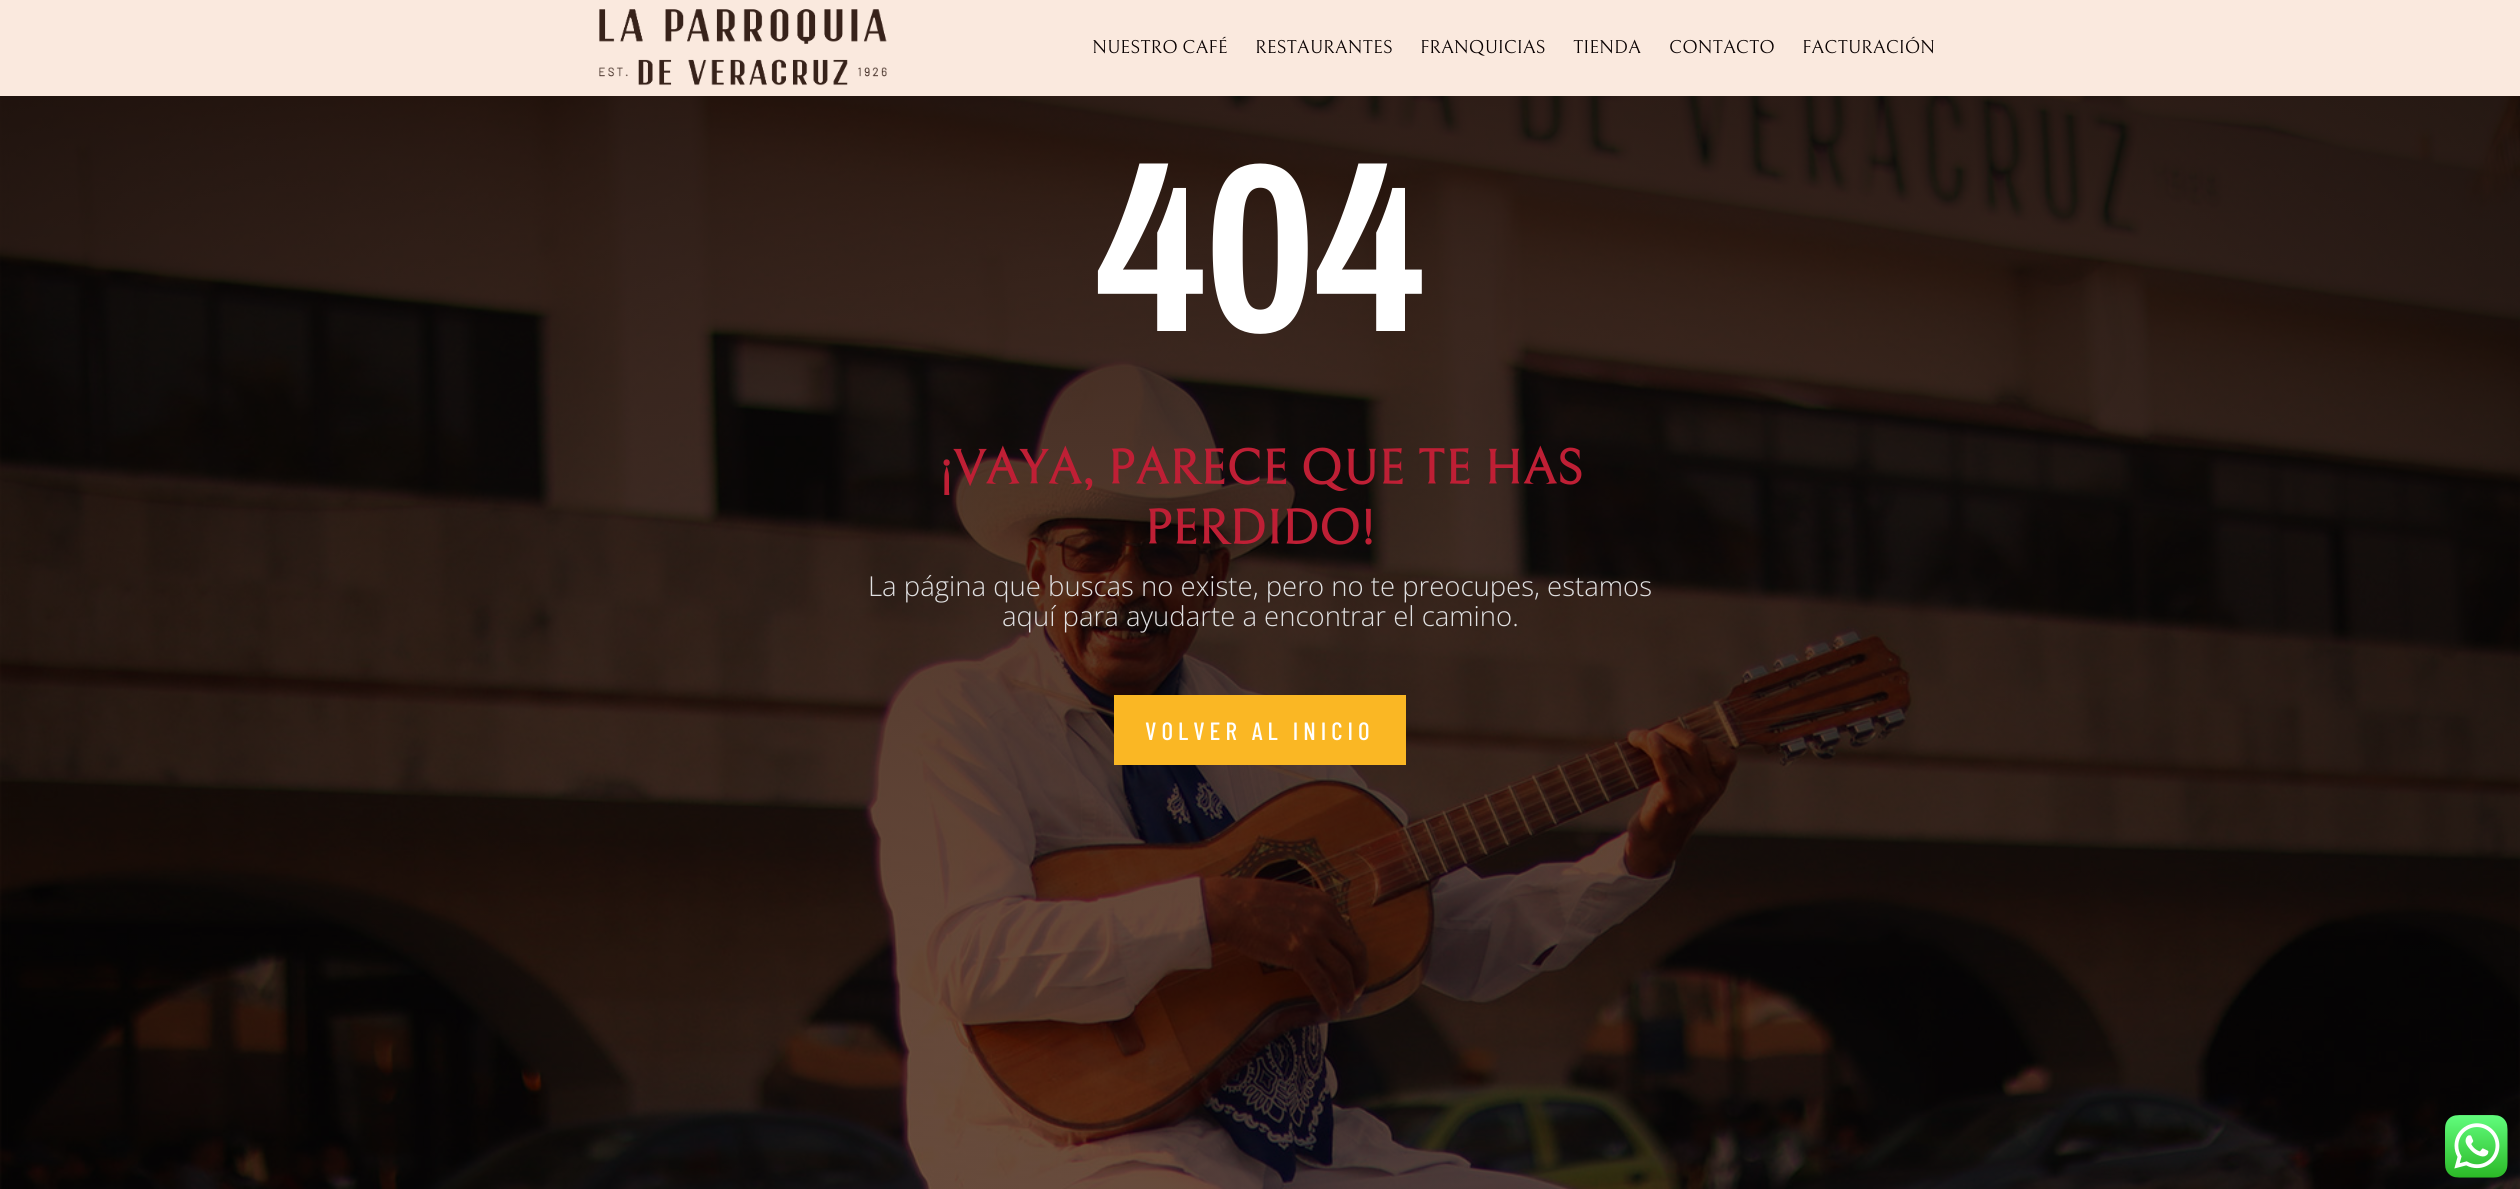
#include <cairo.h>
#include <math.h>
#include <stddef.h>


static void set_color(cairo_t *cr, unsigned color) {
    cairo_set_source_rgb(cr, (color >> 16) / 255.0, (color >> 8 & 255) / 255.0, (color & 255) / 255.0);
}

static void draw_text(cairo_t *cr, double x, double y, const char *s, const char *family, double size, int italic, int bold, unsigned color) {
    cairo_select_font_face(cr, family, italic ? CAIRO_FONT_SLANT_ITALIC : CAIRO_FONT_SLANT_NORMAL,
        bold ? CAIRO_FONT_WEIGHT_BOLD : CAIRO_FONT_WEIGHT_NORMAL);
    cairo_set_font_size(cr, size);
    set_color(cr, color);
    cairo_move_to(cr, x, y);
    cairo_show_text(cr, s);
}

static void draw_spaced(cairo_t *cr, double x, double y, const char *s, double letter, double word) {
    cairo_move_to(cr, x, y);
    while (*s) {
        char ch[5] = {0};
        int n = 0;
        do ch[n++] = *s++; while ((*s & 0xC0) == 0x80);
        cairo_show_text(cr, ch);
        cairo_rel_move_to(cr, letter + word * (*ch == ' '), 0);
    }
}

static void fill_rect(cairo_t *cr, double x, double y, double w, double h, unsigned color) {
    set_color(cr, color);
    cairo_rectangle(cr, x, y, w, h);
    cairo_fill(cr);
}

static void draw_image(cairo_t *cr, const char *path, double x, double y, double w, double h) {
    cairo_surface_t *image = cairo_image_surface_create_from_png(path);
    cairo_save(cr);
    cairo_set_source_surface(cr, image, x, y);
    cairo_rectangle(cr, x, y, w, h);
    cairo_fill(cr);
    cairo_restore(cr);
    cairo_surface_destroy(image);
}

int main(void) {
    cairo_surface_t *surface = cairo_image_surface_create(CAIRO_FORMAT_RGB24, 2520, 1189);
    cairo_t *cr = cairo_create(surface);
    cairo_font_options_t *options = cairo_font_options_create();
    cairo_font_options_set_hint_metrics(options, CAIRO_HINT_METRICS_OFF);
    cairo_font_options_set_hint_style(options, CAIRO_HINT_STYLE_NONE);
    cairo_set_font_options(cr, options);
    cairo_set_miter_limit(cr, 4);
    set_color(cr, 0xFFFFFF);
    cairo_paint(cr);
    fill_rect(cr, 0, 0, 2520, 96, 0xFAE9DE);
    draw_image(cr, "assets/img1.png", 599, 9, 288, 77);
    draw_text(cr, 1092, 53, "NUESTRO CAFÉ", "Bellefair", 18.75, 0, 0, 0x0A0202);
    draw_text(cr, 1255, 53, "RESTAURANTES", "Bellefair", 18.75, 0, 0, 0x0A0202);
    draw_text(cr, 1420, 53, "FRANQUICIAS", "Bellefair", 18.75, 0, 0, 0x0A0202);
    draw_text(cr, 1573, 53, "TIENDA", "Bellefair", 18.75, 0, 0, 0x0A0202);
    draw_text(cr, 1669, 53, "CONTACTO", "Bellefair", 18.75, 0, 0, 0x0A0202);
    draw_text(cr, 1802, 53, "FACTURACIÓN", "Bellefair", 18.75, 0, 0, 0x0A0202);
    draw_image(cr, "assets/img2.png", 0, 96, 2520, 1093);
    draw_text(cr, 1096, 331, "404", "Archivo Narrow", 240, 0, 1, 0xFFFFFF);
    draw_text(cr, 938, 484, "¡VAYA, PARECE QUE TE HAS", "Bellefair", 50, 0, 1, 0xBF1F35);
    draw_text(cr, 1144, 544, "PERDIDO!", "Bellefair", 50, 0, 1, 0xBF1F35);
    draw_text(cr, 868, 596, "La página que buscas no existe, pero no te preocupes, estamos", "Open Sans Light", 27.5, 0, 0, 0xE0E0E1);
    draw_text(cr, 1002, 626, "aquí para ayudarte a encontrar el camino.", "Open Sans Light", 27.5, 0, 0, 0xE0E0E1);
    fill_rect(cr, 1114, 695, 292, 70, 0xFAB724);
    cairo_select_font_face(cr, "Barlow Condensed Medium", CAIRO_FONT_SLANT_NORMAL, CAIRO_FONT_WEIGHT_NORMAL);
    cairo_set_font_size(cr, 25);
    set_color(cr, 0xFFFFFF);
    draw_spaced(cr, 1145, 740, "VOLVER AL INICIO", 5, 0);
    draw_image(cr, "assets/img3.png", 2445, 1115, 63, 63);
    cairo_surface_write_to_png(surface, "output.png");
    cairo_font_options_destroy(options);
    cairo_destroy(cr);
    cairo_surface_destroy(surface);
    return 0;
}
